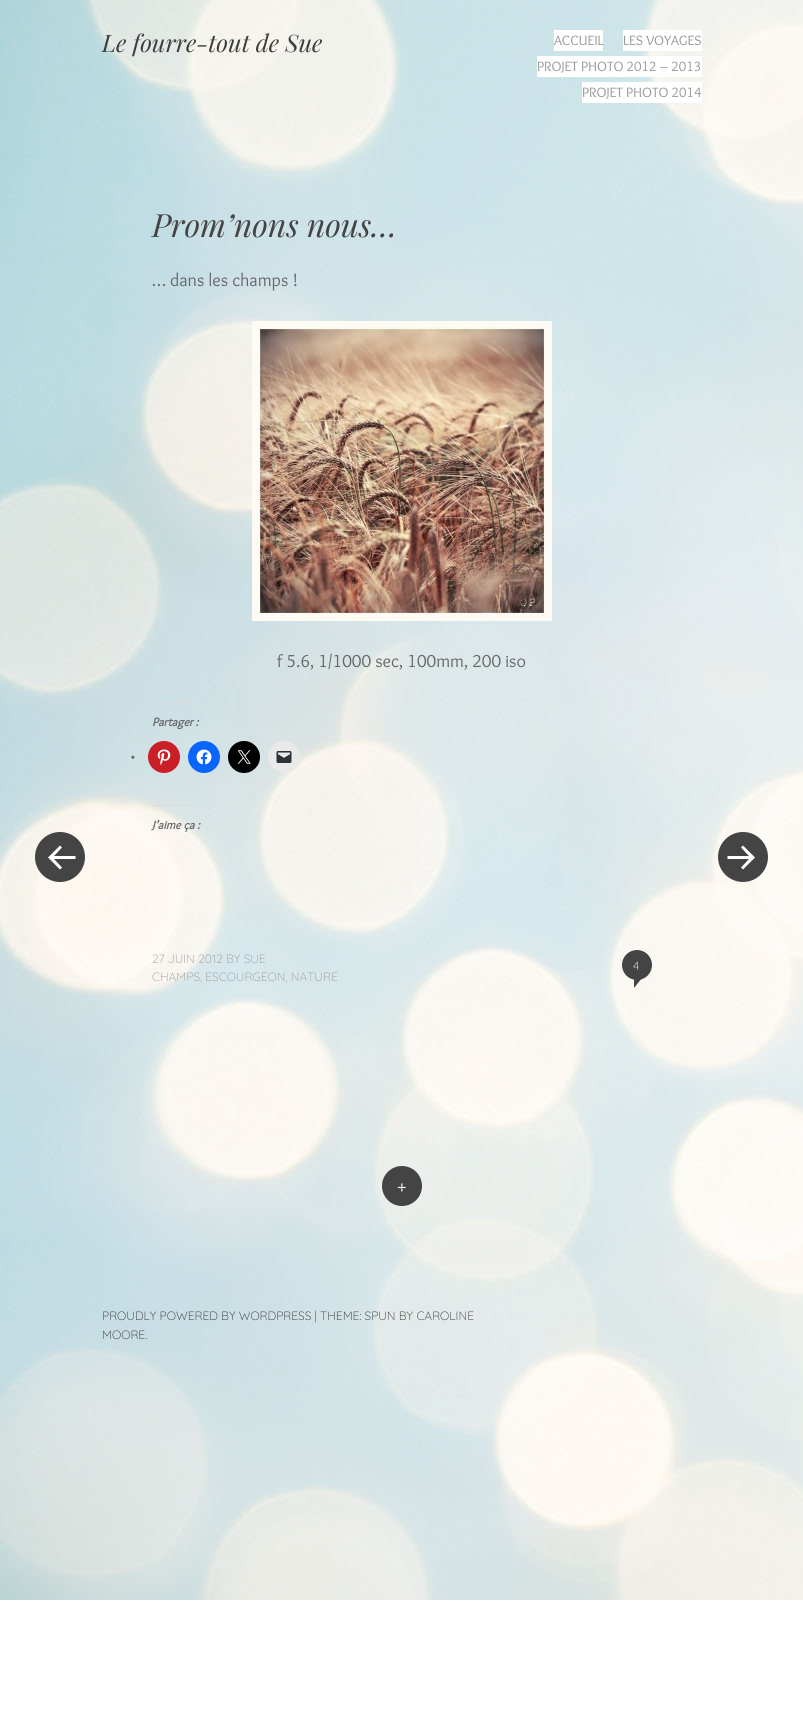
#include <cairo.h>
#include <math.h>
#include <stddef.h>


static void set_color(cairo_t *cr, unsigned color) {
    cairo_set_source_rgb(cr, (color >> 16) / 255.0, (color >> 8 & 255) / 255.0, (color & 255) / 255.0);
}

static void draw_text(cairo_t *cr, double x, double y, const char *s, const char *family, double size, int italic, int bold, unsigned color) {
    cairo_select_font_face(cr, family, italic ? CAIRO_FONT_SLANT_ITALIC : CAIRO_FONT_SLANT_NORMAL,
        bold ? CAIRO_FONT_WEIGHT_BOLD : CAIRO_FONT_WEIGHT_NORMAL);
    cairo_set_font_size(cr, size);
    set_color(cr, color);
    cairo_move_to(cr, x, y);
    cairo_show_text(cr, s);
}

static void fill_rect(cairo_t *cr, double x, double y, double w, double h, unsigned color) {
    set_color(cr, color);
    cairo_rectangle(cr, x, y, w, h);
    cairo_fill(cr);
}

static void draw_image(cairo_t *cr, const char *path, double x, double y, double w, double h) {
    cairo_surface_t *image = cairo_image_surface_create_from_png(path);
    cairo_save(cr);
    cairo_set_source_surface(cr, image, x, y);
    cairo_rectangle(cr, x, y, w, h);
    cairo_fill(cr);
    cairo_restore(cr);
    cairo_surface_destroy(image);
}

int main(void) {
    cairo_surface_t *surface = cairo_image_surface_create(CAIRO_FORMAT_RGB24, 803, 1713);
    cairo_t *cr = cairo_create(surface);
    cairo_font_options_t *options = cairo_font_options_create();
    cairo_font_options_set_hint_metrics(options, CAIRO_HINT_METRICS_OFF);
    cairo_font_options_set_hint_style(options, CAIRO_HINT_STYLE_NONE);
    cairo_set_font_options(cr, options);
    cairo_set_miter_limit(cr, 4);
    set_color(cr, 0xFFFFFF);
    cairo_paint(cr);
    draw_image(cr, "assets/img1.png", 0, 0, 803, 1600);
    draw_text(cr, 102, 52, "Le fourre-tout de Sue", "Playfair Display", 24, 1, 0, 0x3D3D3D);
    fill_rect(cr, 554, 30, 49, 21, 0xFFFFFF);
    draw_text(cr, 554, 45, "ACCUEIL", "Overlock", 14, 0, 0, 0x999999);
    fill_rect(cr, 623, 30, 79, 21, 0xFFFFFF);
    draw_text(cr, 623, 45, "LES VOYAGES", "Overlock", 14, 0, 0, 0x999999);
    fill_rect(cr, 537, 56, 165, 21, 0xFFFFFF);
    draw_text(cr, 537, 71, "PROJET PHOTO 2012 – 2013", "Overlock", 14, 0, 0, 0x999999);
    fill_rect(cr, 582, 82, 120, 21, 0xFFFFFF);
    draw_text(cr, 582, 97, "PROJET PHOTO 2014", "Overlock", 14, 0, 0, 0x999999);
    draw_text(cr, 152, 237, "Prom’nons nous…", "Playfair Display", 32, 1, 0, 0x444444);
    draw_text(cr, 152, 286, "… dans les champs !", "Overlock", 18, 0, 0, 0x666666);
    draw_image(cr, "assets/img2.png", 252, 321, 300, 300);
    draw_text(cr, 277, 667, "f 5.6, 1/1000 sec, 100mm, 200 iso", "Overlock", 18, 0, 0, 0x666666);
    fill_rect(cr, 152, 702, 46, 1, 0xDCDCDE);
    draw_text(cr, 152, 726, "Partager :", "Overlock", 12, 1, 1, 0x666666);
    draw_text(cr, 131, 761, "•", "Overlock", 14, 0, 0, 0x666666);
    set_color(cr, 0xCA1F27);
    cairo_new_path(cr);
    cairo_arc(cr, 164, 757, 16, 0, 2 * M_PI);
    cairo_fill(cr);
    draw_image(cr, "assets/img3.png", 157, 749, 14, 16);
    set_color(cr, 0x0866FF);
    cairo_arc(cr, 204, 757, 16, 0, 2 * M_PI);
    cairo_fill(cr);
    draw_image(cr, "assets/img4.png", 196, 749, 16, 16);
    set_color(cr, 0x000000);
    cairo_arc(cr, 244, 757, 16, 0, 2 * M_PI);
    cairo_fill(cr);
    draw_image(cr, "assets/img5.png", 237, 750, 14, 14);
    set_color(cr, 0xE9E9E9);
    cairo_arc(cr, 284, 757, 16, 0, 2 * M_PI);
    cairo_fill(cr);
    draw_image(cr, "assets/img6.png", 276, 751, 16, 12);
    fill_rect(cr, 152, 805, 47, 1, 0xDCDCDE);
    draw_text(cr, 152, 829, "J’aime ça :", "Overlock", 12, 1, 1, 0x666666);
    draw_text(cr, 152, 963, "27 JUIN 2012 BY SUE", "Quicksand Light", 12, 0, 0, 0x999999);
    draw_text(cr, 152, 981, "CHAMPS, ESCOURGEON, NATURE", "Quicksand Light", 12, 0, 0, 0x999999);
    set_color(cr, 0x444444);
    cairo_new_path(cr);
    cairo_move_to(cr, 634, 978);
    cairo_line_to(cr, 642, 978);
    cairo_line_to(cr, 634, 988);
    cairo_close_path(cr);
    cairo_fill(cr);
    cairo_arc(cr, 637, 965, 15, 0, 2 * M_PI);
    cairo_fill(cr);
    draw_text(cr, 633, 970, "4", "Quicksand Light", 12, 0, 0, 0xFFFFFF);
    set_color(cr, 0x444444);
    cairo_new_path(cr);
    cairo_arc(cr, 60, 857, 25, 0, 2 * M_PI);
    cairo_fill(cr);
    set_color(cr, 0xFFFFFF);
    cairo_new_path(cr);
    cairo_move_to(cr, 48, 857.5);
    cairo_line_to(cr, 60, 869.5);
    cairo_line_to(cr, 62, 867.5);
    cairo_line_to(cr, 54, 859);
    cairo_line_to(cr, 75.5, 859);
    cairo_line_to(cr, 75.5, 856);
    cairo_line_to(cr, 54, 856);
    cairo_line_to(cr, 62, 847.5);
    cairo_line_to(cr, 60, 845.5);
    cairo_close_path(cr);
    cairo_fill(cr);
    set_color(cr, 0x444444);
    cairo_arc(cr, 743, 857, 25, 0, 2 * M_PI);
    cairo_fill(cr);
    set_color(cr, 0xFFFFFF);
    cairo_new_path(cr);
    cairo_move_to(cr, 755, 857.5);
    cairo_line_to(cr, 743, 869.5);
    cairo_line_to(cr, 741, 867.5);
    cairo_line_to(cr, 749, 859);
    cairo_line_to(cr, 727.5, 859);
    cairo_line_to(cr, 727.5, 856);
    cairo_line_to(cr, 749, 856);
    cairo_line_to(cr, 741, 847.5);
    cairo_line_to(cr, 743, 845.5);
    cairo_close_path(cr);
    cairo_fill(cr);
    set_color(cr, 0x444444);
    cairo_arc(cr, 402, 1186, 20, 0, 2 * M_PI);
    cairo_fill(cr);
    draw_text(cr, 397, 1192, "+", "Overlock", 18, 0, 0, 0xFFFFFF);
    draw_text(cr, 102, 1320, "PROUDLY POWERED BY WORDPRESS | THEME: SPUN BY CAROLINE", "Quicksand Light", 12, 0, 0, 0x333333);
    draw_text(cr, 102, 1339, "MOORE.", "Quicksand Light", 12, 0, 0, 0x333333);
    cairo_surface_write_to_png(surface, "output.png");
    cairo_font_options_destroy(options);
    cairo_destroy(cr);
    cairo_surface_destroy(surface);
    return 0;
}
